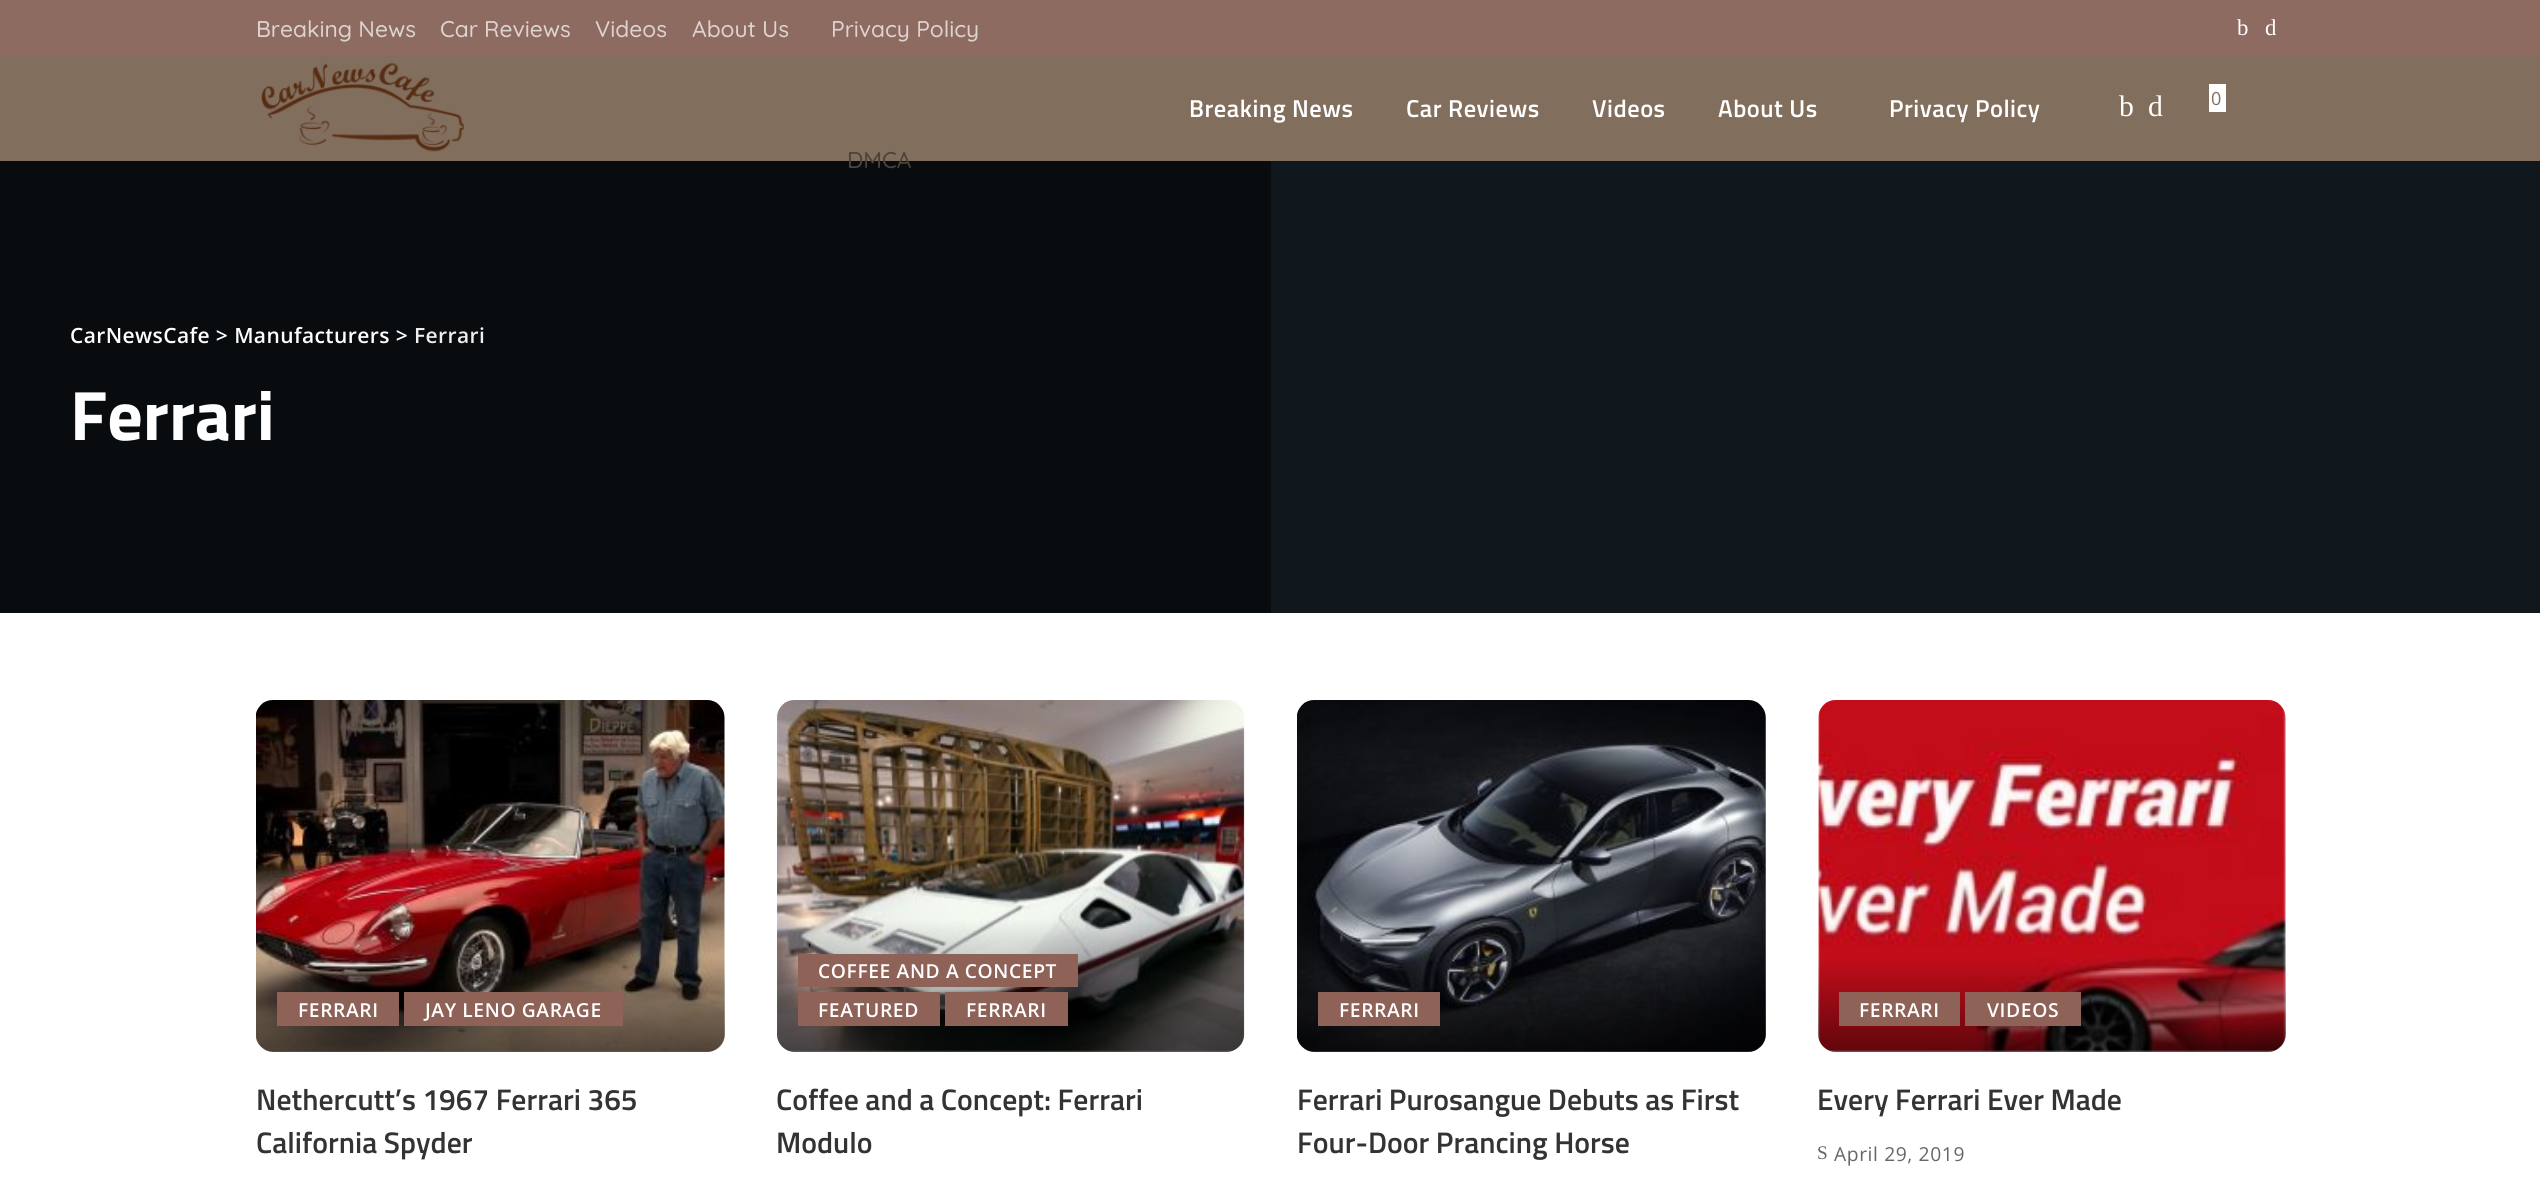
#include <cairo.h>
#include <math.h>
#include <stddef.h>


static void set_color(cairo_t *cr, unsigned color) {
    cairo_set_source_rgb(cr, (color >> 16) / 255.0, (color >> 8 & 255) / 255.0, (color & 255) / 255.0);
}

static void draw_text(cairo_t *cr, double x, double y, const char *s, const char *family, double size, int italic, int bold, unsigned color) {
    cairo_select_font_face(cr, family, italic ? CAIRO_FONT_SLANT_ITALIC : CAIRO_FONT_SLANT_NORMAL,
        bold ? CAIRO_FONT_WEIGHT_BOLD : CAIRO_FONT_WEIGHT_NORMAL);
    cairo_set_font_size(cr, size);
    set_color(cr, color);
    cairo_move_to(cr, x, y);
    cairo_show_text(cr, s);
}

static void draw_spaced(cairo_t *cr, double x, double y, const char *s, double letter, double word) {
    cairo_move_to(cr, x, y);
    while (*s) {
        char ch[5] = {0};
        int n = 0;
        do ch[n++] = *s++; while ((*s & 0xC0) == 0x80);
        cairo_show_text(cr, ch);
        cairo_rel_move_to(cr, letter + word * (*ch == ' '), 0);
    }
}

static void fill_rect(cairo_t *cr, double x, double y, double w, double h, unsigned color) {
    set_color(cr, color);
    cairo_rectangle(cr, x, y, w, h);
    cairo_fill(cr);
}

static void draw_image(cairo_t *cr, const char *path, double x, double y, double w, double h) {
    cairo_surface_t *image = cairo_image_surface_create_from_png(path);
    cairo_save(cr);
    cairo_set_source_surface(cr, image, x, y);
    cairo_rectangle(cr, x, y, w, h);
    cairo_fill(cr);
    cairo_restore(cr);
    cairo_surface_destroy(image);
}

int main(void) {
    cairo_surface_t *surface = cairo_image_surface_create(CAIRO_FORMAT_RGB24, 2540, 1191);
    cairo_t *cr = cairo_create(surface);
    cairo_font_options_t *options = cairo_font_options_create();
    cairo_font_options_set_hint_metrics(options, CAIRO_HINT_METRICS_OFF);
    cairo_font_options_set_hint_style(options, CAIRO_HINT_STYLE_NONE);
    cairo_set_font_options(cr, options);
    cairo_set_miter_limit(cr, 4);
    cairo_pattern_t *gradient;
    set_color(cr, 0xFFFFFF);
    cairo_paint(cr);
    fill_rect(cr, 0, 0, 2540, 56, 0x8E6B61);
    draw_text(cr, 256, 37, "Breaking News", "Quicksand Medium", 22.75, 0, 0, 0xDDD3D0);
    draw_text(cr, 440, 37, "Car Reviews", "Quicksand Medium", 22.75, 0, 0, 0xDDD3D0);
    draw_text(cr, 595, 37, "Videos", "Quicksand Medium", 22.75, 0, 0, 0xDDD3D0);
    draw_text(cr, 692, 37, "About Us", "Quicksand Medium", 22.75, 0, 0, 0xDDD3D0);
    draw_text(cr, 831, 37, "Privacy Policy", "Quicksand Medium", 22.75, 0, 0, 0xDDD3D0);
    fill_rect(cr, 0, 56, 2540, 105, 0x826E5D);
    fill_rect(cr, 0, 161, 1271, 452, 0x080C0F);
    draw_text(cr, 847, 168, "DMCA", "Quicksand Medium", 22.75, 0, 0, 0x4B423A);
    draw_text(cr, 2237, 35, "b", "Liberation Serif", 22.75, 0, 0, 0xFFFFFF);
    draw_text(cr, 2265, 35, "d", "Liberation Serif", 22.75, 0, 0, 0xFFFFFF);
    draw_image(cr, "assets/img1.png", 261, 63, 203, 89);
    cairo_select_font_face(cr, "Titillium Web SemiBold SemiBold", CAIRO_FONT_SLANT_NORMAL, CAIRO_FONT_WEIGHT_NORMAL);
    cairo_set_font_size(cr, 24.5);
    draw_spaced(cr, 1189, 117, "Breaking News", 0.5, 0);
    draw_spaced(cr, 1406, 117, "Car Reviews", 0.5, 0);
    draw_spaced(cr, 1592, 117, "Videos", 0.5, 0);
    draw_spaced(cr, 1718, 117, "About Us", 0.5, 0);
    draw_spaced(cr, 1889, 117, "Privacy Policy", 0.5, 0);
    draw_text(cr, 2119, 116, "b", "Liberation Serif", 29.75, 0, 0, 0xFFFFFF);
    draw_text(cr, 2148, 116, "d", "Liberation Serif", 29.75, 0, 0, 0xFFFFFF);
    fill_rect(cr, 2209, 84, 17, 28, 0xFFFFFF);
    draw_text(cr, 2211, 105, "0", "Open Sans", 18, 0, 0, 0x826E5D);
    fill_rect(cr, 1271, 161, 1269, 452, 0x10181E);
    cairo_select_font_face(cr, "Open Sans SemiBold", CAIRO_FONT_SLANT_NORMAL, CAIRO_FONT_WEIGHT_NORMAL);
    cairo_set_font_size(cr, 21);
    set_color(cr, 0xFFFFFF);
    draw_spaced(cr, 70, 343, "CarNewsCafe > Manufacturers >", 0.4, 0);
    set_color(cr, 0xEFEFEF);
    draw_spaced(cr, 414, 343, "Ferrari", 0.4, 0);
    draw_text(cr, 70, 440, "Ferrari", "Titillium Web", 70, 0, 1, 0xFFFFFF);
    draw_image(cr, "assets/img2.png", 256, 700, 469, 352);
    gradient = cairo_pattern_create_linear(490, 957, 490, 1052);
    cairo_pattern_add_color_stop_rgba(gradient, 0, 0, 0, 0, 0);
    cairo_pattern_add_color_stop_rgba(gradient, 1, 0, 0, 0, 0.5);
    cairo_set_source(cr, gradient);
    cairo_pattern_destroy(gradient);
    cairo_new_path(cr);
    cairo_move_to(cr, 256, 957);
    cairo_line_to(cr, 725, 957);
    cairo_line_to(cr, 725, 1034);
    cairo_curve_to(cr, 725, 1044, 717, 1052, 707, 1052);
    cairo_line_to(cr, 274, 1052);
    cairo_curve_to(cr, 264, 1052, 256, 1044, 256, 1034);
    cairo_close_path(cr);
    cairo_fill(cr);
    fill_rect(cr, 277, 992, 122, 34, 0x8E6257);
    cairo_select_font_face(cr, "Open Sans SemiBold", CAIRO_FONT_SLANT_NORMAL, CAIRO_FONT_WEIGHT_NORMAL);
    cairo_set_font_size(cr, 19.25);
    set_color(cr, 0xFFFFFF);
    draw_spaced(cr, 298, 1017, "FERRARI", 0.6, 0);
    fill_rect(cr, 404, 992, 219, 34, 0x8E6257);
    set_color(cr, 0xFFFFFF);
    draw_spaced(cr, 425, 1017, "JAY LENO GARAGE", 0.6, 0);
    draw_text(cr, 256, 1110, "Nethercutt’s 1967 Ferrari 365", "Titillium Web SemiBold SemiBold", 29.75, 0, 0, 0x333333);
    draw_text(cr, 256, 1153, "California Spyder", "Titillium Web SemiBold SemiBold", 29.75, 0, 0, 0x333333);
    draw_image(cr, "assets/img3.png", 777, 700, 468, 352);
    gradient = cairo_pattern_create_linear(1011, 919, 1011, 1052);
    cairo_pattern_add_color_stop_rgba(gradient, 0, 0, 0, 0, 0);
    cairo_pattern_add_color_stop_rgba(gradient, 1, 0, 0, 0, 0.5);
    cairo_set_source(cr, gradient);
    cairo_pattern_destroy(gradient);
    cairo_new_path(cr);
    cairo_move_to(cr, 777, 919);
    cairo_line_to(cr, 1244, 919);
    cairo_line_to(cr, 1244, 1034);
    cairo_curve_to(cr, 1244, 1044, 1236, 1052, 1226, 1052);
    cairo_line_to(cr, 795, 1052);
    cairo_curve_to(cr, 785, 1052, 777, 1044, 777, 1034);
    cairo_close_path(cr);
    cairo_fill(cr);
    fill_rect(cr, 798, 954, 280, 33, 0x8E6257);
    cairo_select_font_face(cr, "Open Sans SemiBold", CAIRO_FONT_SLANT_NORMAL, CAIRO_FONT_WEIGHT_NORMAL);
    cairo_set_font_size(cr, 19.25);
    set_color(cr, 0xFFFFFF);
    draw_spaced(cr, 818, 978, "COFFEE AND A CONCEPT", 0.6, 0);
    fill_rect(cr, 798, 992, 142, 34, 0x8E6257);
    set_color(cr, 0xFFFFFF);
    draw_spaced(cr, 818, 1017, "FEATURED", 0.6, 0);
    fill_rect(cr, 945, 992, 123, 34, 0x8E6257);
    set_color(cr, 0xFFFFFF);
    draw_spaced(cr, 966, 1017, "FERRARI", 0.6, 0);
    draw_text(cr, 776, 1110, "Coffee and a Concept: Ferrari", "Titillium Web SemiBold SemiBold", 29.75, 0, 0, 0x333333);
    draw_text(cr, 776, 1153, "Modulo", "Titillium Web SemiBold SemiBold", 29.75, 0, 0, 0x333333);
    draw_image(cr, "assets/img4.png", 1297, 700, 469, 352);
    gradient = cairo_pattern_create_linear(1531, 957, 1531, 1052);
    cairo_pattern_add_color_stop_rgba(gradient, 0, 0, 0, 0, 0);
    cairo_pattern_add_color_stop_rgba(gradient, 1, 0, 0, 0, 0.5);
    cairo_set_source(cr, gradient);
    cairo_pattern_destroy(gradient);
    cairo_new_path(cr);
    cairo_move_to(cr, 1297, 957);
    cairo_line_to(cr, 1766, 957);
    cairo_line_to(cr, 1766, 1034);
    cairo_curve_to(cr, 1766, 1044, 1758, 1052, 1748, 1052);
    cairo_line_to(cr, 1315, 1052);
    cairo_curve_to(cr, 1305, 1052, 1297, 1044, 1297, 1034);
    cairo_close_path(cr);
    cairo_fill(cr);
    fill_rect(cr, 1318, 992, 122, 34, 0x8E6257);
    cairo_select_font_face(cr, "Open Sans SemiBold", CAIRO_FONT_SLANT_NORMAL, CAIRO_FONT_WEIGHT_NORMAL);
    cairo_set_font_size(cr, 19.25);
    set_color(cr, 0xFFFFFF);
    draw_spaced(cr, 1339, 1017, "FERRARI", 0.6, 0);
    draw_text(cr, 1297, 1110, "Ferrari Purosangue Debuts as First", "Titillium Web SemiBold SemiBold", 29.75, 0, 0, 0x333333);
    draw_text(cr, 1297, 1153, "Four-Door Prancing Horse", "Titillium Web SemiBold SemiBold", 29.75, 0, 0, 0x333333);
    draw_image(cr, "assets/img5.png", 1818, 700, 468, 352);
    gradient = cairo_pattern_create_linear(2052, 957, 2052, 1052);
    cairo_pattern_add_color_stop_rgba(gradient, 0, 0, 0, 0, 0);
    cairo_pattern_add_color_stop_rgba(gradient, 1, 0, 0, 0, 0.5);
    cairo_set_source(cr, gradient);
    cairo_pattern_destroy(gradient);
    cairo_new_path(cr);
    cairo_move_to(cr, 1818, 957);
    cairo_line_to(cr, 2286, 957);
    cairo_line_to(cr, 2286, 1034);
    cairo_curve_to(cr, 2286, 1044, 2278, 1052, 2268, 1052);
    cairo_line_to(cr, 1836, 1052);
    cairo_curve_to(cr, 1826, 1052, 1818, 1044, 1818, 1034);
    cairo_close_path(cr);
    cairo_fill(cr);
    fill_rect(cr, 1839, 992, 121, 34, 0x8E6257);
    cairo_select_font_face(cr, "Open Sans SemiBold", CAIRO_FONT_SLANT_NORMAL, CAIRO_FONT_WEIGHT_NORMAL);
    cairo_set_font_size(cr, 19.25);
    set_color(cr, 0xFFFFFF);
    draw_spaced(cr, 1859, 1017, "FERRARI", 0.6, 0);
    fill_rect(cr, 1965, 992, 116, 34, 0x8E6257);
    set_color(cr, 0xFFFFFF);
    draw_spaced(cr, 1987, 1017, "VIDEOS", 0.6, 0);
    draw_text(cr, 1817, 1110, "Every Ferrari Ever Made", "Titillium Web SemiBold SemiBold", 29.75, 0, 0, 0x333333);
    cairo_select_font_face(cr, "Liberation Serif", CAIRO_FONT_SLANT_NORMAL, CAIRO_FONT_WEIGHT_NORMAL);
    cairo_set_font_size(cr, 19.25);
    set_color(cr, 0x666666);
    draw_spaced(cr, 1817, 1159, "S", 0.6, 0);
    cairo_select_font_face(cr, "Open Sans", CAIRO_FONT_SLANT_NORMAL, CAIRO_FONT_WEIGHT_NORMAL);
    draw_spaced(cr, 1834, 1161, "April 29, 2019", 0.6, 0);
    cairo_surface_write_to_png(surface, "output.png");
    cairo_font_options_destroy(options);
    cairo_destroy(cr);
    cairo_surface_destroy(surface);
    return 0;
}
